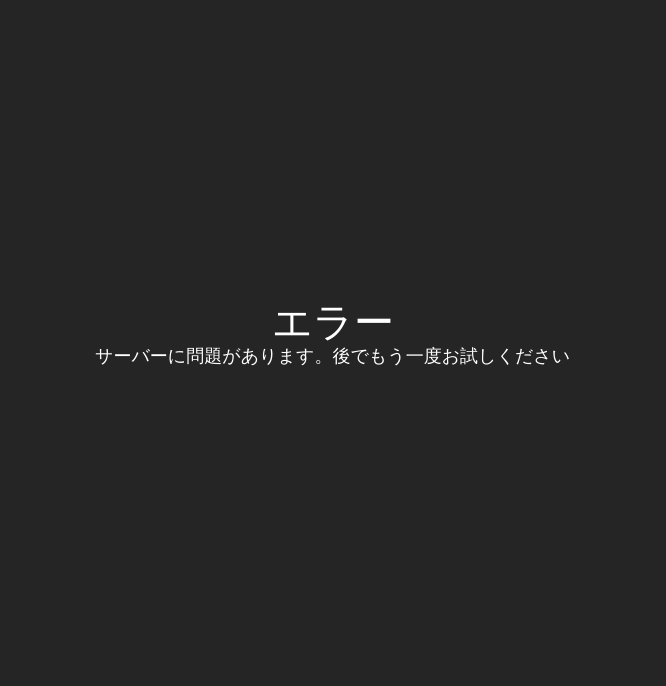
#include <cairo.h>
#include <math.h>
#include <stddef.h>


static void set_color(cairo_t *cr, unsigned color) {
    cairo_set_source_rgb(cr, (color >> 16) / 255.0, (color >> 8 & 255) / 255.0, (color & 255) / 255.0);
}

static void draw_text(cairo_t *cr, double x, double y, const char *s, const char *family, double size, int italic, int bold, unsigned color) {
    cairo_select_font_face(cr, family, italic ? CAIRO_FONT_SLANT_ITALIC : CAIRO_FONT_SLANT_NORMAL,
        bold ? CAIRO_FONT_WEIGHT_BOLD : CAIRO_FONT_WEIGHT_NORMAL);
    cairo_set_font_size(cr, size);
    set_color(cr, color);
    cairo_move_to(cr, x, y);
    cairo_show_text(cr, s);
}

int main(void) {
    cairo_surface_t *surface = cairo_image_surface_create(CAIRO_FORMAT_RGB24, 666, 686);
    cairo_t *cr = cairo_create(surface);
    cairo_font_options_t *options = cairo_font_options_create();
    cairo_font_options_set_hint_metrics(options, CAIRO_HINT_METRICS_OFF);
    cairo_font_options_set_hint_style(options, CAIRO_HINT_STYLE_NONE);
    cairo_set_font_options(cr, options);
    cairo_set_miter_limit(cr, 4);
    set_color(cr, 0x252525);
    cairo_paint(cr);
    draw_text(cr, 272, 336, "エラー", "WenQuanYi Zen Hei Medium", 40, 0, 0, 0xFFFFFF);
    draw_text(cr, 95, 362, "サーバーに問題があります。後でもう一度お試しください", "WenQuanYi Zen Hei Medium", 18, 0, 0, 0xFFFFFF);
    cairo_surface_write_to_png(surface, "output.png");
    cairo_font_options_destroy(options);
    cairo_destroy(cr);
    cairo_surface_destroy(surface);
    return 0;
}
